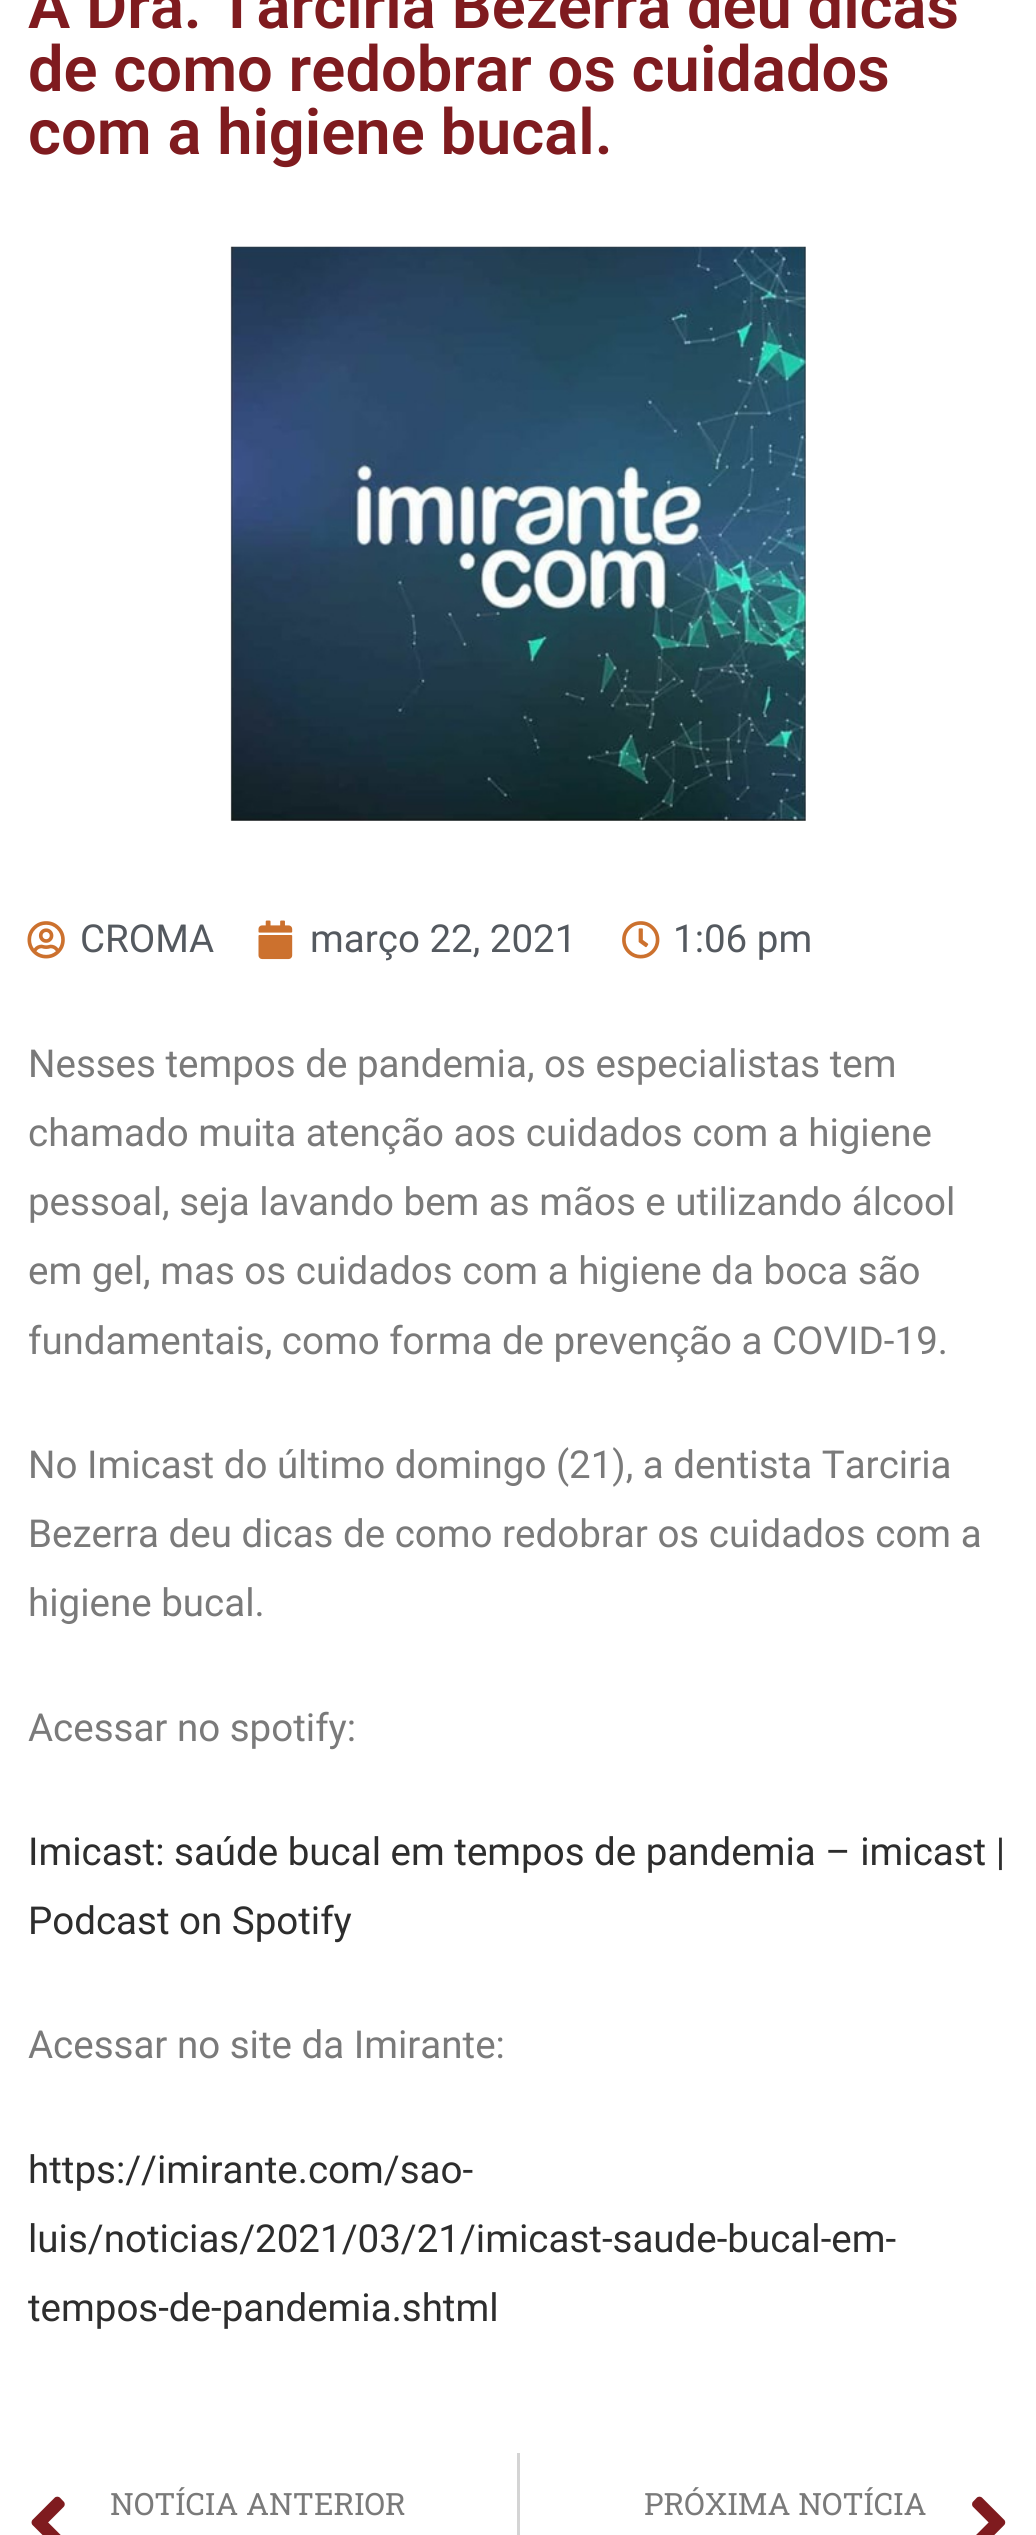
#include <cairo.h>
#include <math.h>
#include <stddef.h>


static void set_color(cairo_t *cr, unsigned color) {
    cairo_set_source_rgb(cr, (color >> 16) / 255.0, (color >> 8 & 255) / 255.0, (color & 255) / 255.0);
}

static void draw_text(cairo_t *cr, double x, double y, const char *s, const char *family, double size, int italic, int bold, unsigned color) {
    cairo_select_font_face(cr, family, italic ? CAIRO_FONT_SLANT_ITALIC : CAIRO_FONT_SLANT_NORMAL,
        bold ? CAIRO_FONT_WEIGHT_BOLD : CAIRO_FONT_WEIGHT_NORMAL);
    cairo_set_font_size(cr, size);
    set_color(cr, color);
    cairo_move_to(cr, x, y);
    cairo_show_text(cr, s);
}

static void fill_rect(cairo_t *cr, double x, double y, double w, double h, unsigned color) {
    set_color(cr, color);
    cairo_rectangle(cr, x, y, w, h);
    cairo_fill(cr);
}

static void draw_image(cairo_t *cr, const char *path, double x, double y, double w, double h) {
    cairo_surface_t *image = cairo_image_surface_create_from_png(path);
    cairo_save(cr);
    cairo_set_source_surface(cr, image, x, y);
    cairo_rectangle(cr, x, y, w, h);
    cairo_fill(cr);
    cairo_restore(cr);
    cairo_surface_destroy(image);
}

int main(void) {
    cairo_surface_t *surface = cairo_image_surface_create(CAIRO_FORMAT_RGB24, 1036, 2535);
    cairo_t *cr = cairo_create(surface);
    cairo_font_options_t *options = cairo_font_options_create();
    cairo_font_options_set_hint_metrics(options, CAIRO_HINT_METRICS_OFF);
    cairo_font_options_set_hint_style(options, CAIRO_HINT_STYLE_NONE);
    cairo_set_font_options(cr, options);
    cairo_set_miter_limit(cr, 4);
    set_color(cr, 0xFFFFFF);
    cairo_paint(cr);
    draw_text(cr, 28, 28, "A Dra. Tarciria Bezerra deu dicas", "Roboto SemiBold", 63.25, 0, 0, 0x7F1B1F);
    draw_text(cr, 28, 91, "de como redobrar os cuidados", "Roboto SemiBold", 63.25, 0, 0, 0x7F1B1F);
    draw_text(cr, 28, 154, "com a higiene bucal.", "Roboto SemiBold", 63.25, 0, 0, 0x7F1B1F);
    draw_image(cr, "assets/img1.png", 230, 246, 576, 575);
    draw_image(cr, "assets/img2.png", 27, 921, 38, 38);
    draw_text(cr, 80, 952, "CROMA", "Roboto", 38.5, 0, 0, 0x54595F);
    draw_image(cr, "assets/img3.png", 258, 920, 35, 40);
    draw_text(cr, 310, 952, "março 22, 2021", "Roboto", 38.5, 0, 0, 0x54595F);
    draw_image(cr, "assets/img4.png", 622, 921, 38, 38);
    draw_text(cr, 673, 952, "1:06 pm", "Roboto", 38.5, 0, 0, 0x54595F);
    draw_text(cr, 28, 1077, "Nesses tempos de pandemia, os especialistas tem", "Roboto", 38.5, 0, 0, 0x7A7A7A);
    draw_text(cr, 28, 1146, "chamado muita atenção aos cuidados com a higiene", "Roboto", 38.5, 0, 0, 0x7A7A7A);
    draw_text(cr, 28, 1215, "pessoal, seja lavando bem as mãos e utilizando álcool", "Roboto", 38.5, 0, 0, 0x7A7A7A);
    draw_text(cr, 28, 1284, "em gel, mas os cuidados com a higiene da boca são", "Roboto", 38.5, 0, 0, 0x7A7A7A);
    draw_text(cr, 28, 1354, "fundamentais, como forma de prevenção a COVID-19.", "Roboto", 38.5, 0, 0, 0x7A7A7A);
    draw_text(cr, 28, 1478, "No Imicast do último domingo (21), a dentista Tarciria", "Roboto", 38.5, 0, 0, 0x7A7A7A);
    draw_text(cr, 28, 1547, "Bezerra deu dicas de como redobrar os cuidados com a", "Roboto", 38.5, 0, 0, 0x7A7A7A);
    draw_text(cr, 28, 1616, "higiene bucal.", "Roboto", 38.5, 0, 0, 0x7A7A7A);
    draw_text(cr, 28, 1741, "Acessar no spotify:", "Roboto", 38.5, 0, 0, 0x7A7A7A);
    draw_text(cr, 28, 1865, "Imicast: saúde bucal em tempos de pandemia – imicast |", "Roboto", 38.5, 0, 0, 0x2D2D2D);
    draw_text(cr, 28, 1934, "Podcast on Spotify", "Roboto", 38.5, 0, 0, 0x2D2D2D);
    draw_text(cr, 28, 2058, "Acessar no site da Imirante:", "Roboto", 38.5, 0, 0, 0x7A7A7A);
    draw_text(cr, 28, 2183, "https://imirante.com/sao-", "Roboto", 38.5, 0, 0, 0x2D2D2D);
    draw_text(cr, 28, 2252, "luis/noticias/2021/03/21/imicast-saude-bucal-em-", "Roboto", 38.5, 0, 0, 0x2D2D2D);
    draw_text(cr, 28, 2321, "tempos-de-pandemia.shtml", "Roboto", 38.5, 0, 0, 0x2D2D2D);
    draw_image(cr, "assets/img5.png", 31, 2496, 34, 39);
    draw_text(cr, 110, 2515, "NOTÍCIA ANTERIOR", "Roboto Slab", 30.75, 0, 0, 0x7A7A7A);
    fill_rect(cr, 517, 2453, 3, 82, 0xD4D4D4);
    draw_text(cr, 644, 2515, "PRÓXIMA NOTÍCIA", "Roboto Slab", 30.75, 0, 0, 0x7A7A7A);
    draw_image(cr, "assets/img6.png", 972, 2496, 34, 39);
    cairo_surface_write_to_png(surface, "output.png");
    cairo_font_options_destroy(options);
    cairo_destroy(cr);
    cairo_surface_destroy(surface);
    return 0;
}
